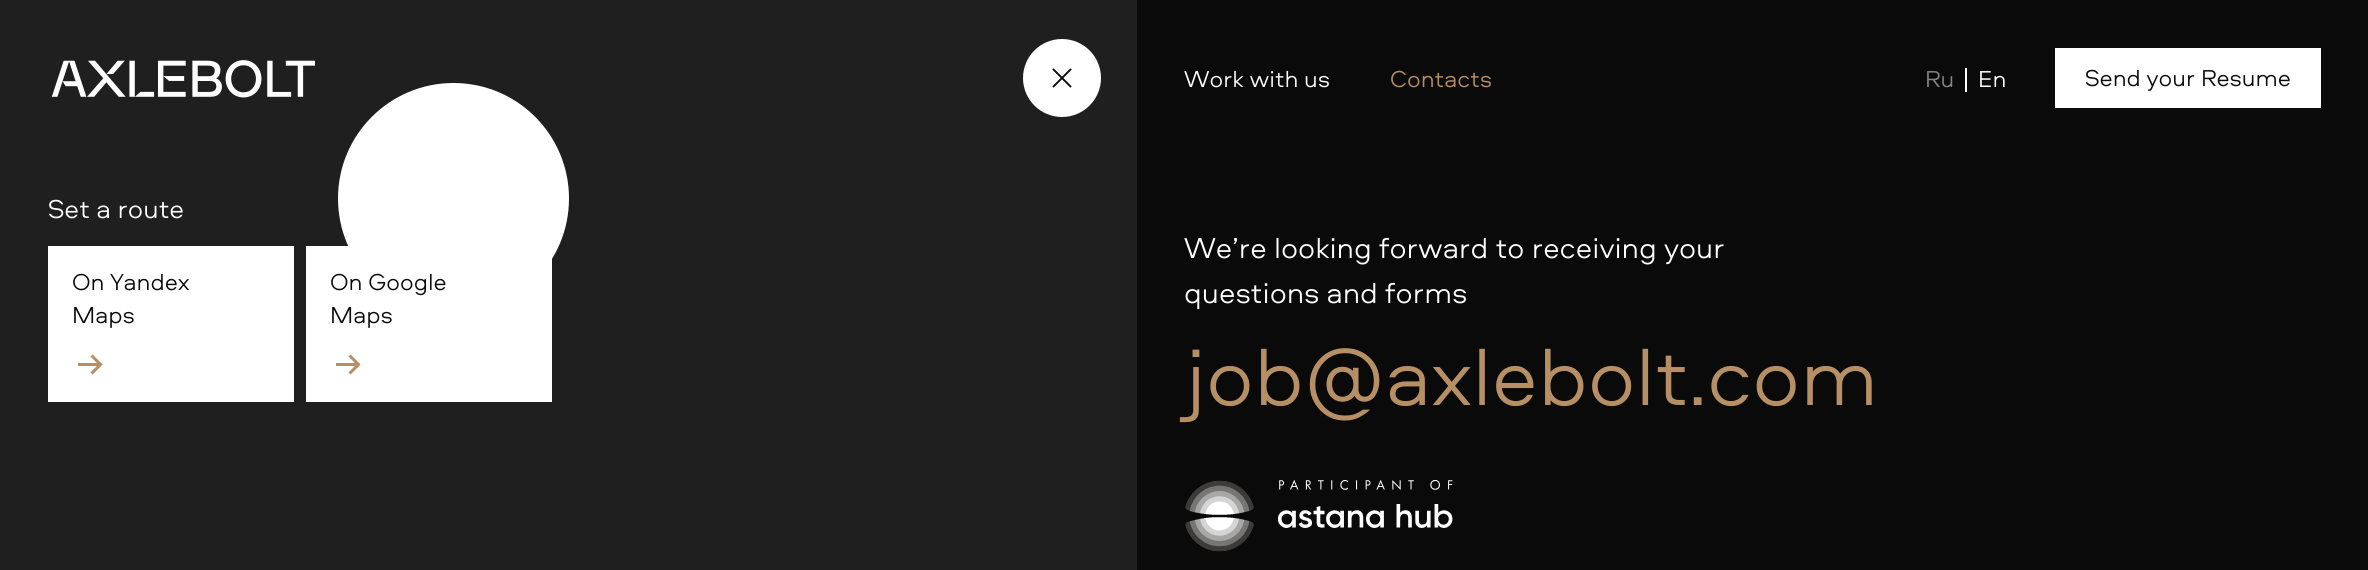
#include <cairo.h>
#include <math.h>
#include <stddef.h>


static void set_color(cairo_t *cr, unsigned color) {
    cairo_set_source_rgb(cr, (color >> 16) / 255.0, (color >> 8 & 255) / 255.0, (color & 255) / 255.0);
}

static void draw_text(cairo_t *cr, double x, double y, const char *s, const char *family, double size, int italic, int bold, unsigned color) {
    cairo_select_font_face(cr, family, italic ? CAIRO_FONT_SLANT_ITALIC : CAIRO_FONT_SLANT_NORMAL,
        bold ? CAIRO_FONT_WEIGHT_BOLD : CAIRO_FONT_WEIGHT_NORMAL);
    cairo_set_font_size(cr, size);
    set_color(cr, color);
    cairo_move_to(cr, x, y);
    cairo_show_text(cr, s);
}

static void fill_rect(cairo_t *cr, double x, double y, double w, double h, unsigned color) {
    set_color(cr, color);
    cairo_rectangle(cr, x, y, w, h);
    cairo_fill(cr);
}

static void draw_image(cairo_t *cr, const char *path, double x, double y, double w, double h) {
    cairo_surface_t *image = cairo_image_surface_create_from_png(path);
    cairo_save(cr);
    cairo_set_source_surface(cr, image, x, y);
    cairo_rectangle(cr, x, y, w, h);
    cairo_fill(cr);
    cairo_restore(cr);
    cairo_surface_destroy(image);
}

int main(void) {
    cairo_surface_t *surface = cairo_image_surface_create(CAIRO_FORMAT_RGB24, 2368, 570);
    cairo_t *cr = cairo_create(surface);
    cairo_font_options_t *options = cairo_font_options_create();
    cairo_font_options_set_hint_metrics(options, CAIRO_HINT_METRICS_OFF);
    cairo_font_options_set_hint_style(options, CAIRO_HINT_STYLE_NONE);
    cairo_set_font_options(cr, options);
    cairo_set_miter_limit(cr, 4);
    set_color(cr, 0x0A0A0A);
    cairo_paint(cr);
    fill_rect(cr, 0, 0, 1137, 570, 0x1F1F1F);
    draw_image(cr, "assets/img1.png", 51, 60, 264, 38);
    draw_text(cr, 1184, 87, "Work with us", "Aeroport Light", 24, 0, 0, 0xFFFFFF);
    draw_text(cr, 1390, 87, "Contacts", "Aeroport Light", 24, 0, 0, 0xB68F65);
    draw_text(cr, 1925, 87, "Ru", "Aeroport Light", 24, 0, 0, 0x858585);
    fill_rect(cr, 1965, 68, 2, 24, 0xFFFFFF);
    draw_text(cr, 1978, 87, "En", "Aeroport Light", 24, 0, 0, 0xFFFFFF);
    fill_rect(cr, 2055, 48, 266, 60, 0xFFFFFF);
    draw_text(cr, 2085, 86, "Send your Resume", "Aeroport Light", 24, 0, 0, 0x0A0A0A);
    set_color(cr, 0xFFFFFF);
    cairo_new_path(cr);
    cairo_arc(cr, 1062, 78, 39, 0, 2 * M_PI);
    cairo_fill(cr);
    cairo_new_path(cr);
    cairo_move_to(cr, 1053, 87);
    cairo_line_to(cr, 1071, 69);
    cairo_move_to(cr, 1053, 69);
    cairo_line_to(cr, 1071, 87);
    set_color(cr, 0x0B0B0B);
    cairo_set_line_width(cr, 1.9);
    cairo_stroke(cr);
    draw_text(cr, 48, 218, "Set a route", "Aeroport Light", 27, 0, 0, 0xFFFFFF);
    fill_rect(cr, 48, 246, 246, 156, 0xFFFFFF);
    draw_text(cr, 72, 290, "On Yandex", "Aeroport Light", 24, 0, 0, 0x0A0A0A);
    draw_text(cr, 72, 323, "Maps", "Aeroport Light", 24, 0, 0, 0x0A0A0A);
    cairo_new_path(cr);
    cairo_move_to(cr, 91.5, 373.5);
    cairo_line_to(cr, 100.5, 364.5);
    cairo_line_to(cr, 91.5, 355.5);
    cairo_move_to(cr, 99, 364.5);
    cairo_line_to(cr, 78, 364.5);
    set_color(cr, 0xB68F65);
    cairo_set_line_width(cr, 3);
    cairo_stroke(cr);
    set_color(cr, 0xFFFFFF);
    cairo_arc(cr, 453.5, 198.5, 115.5, 0, 2 * M_PI);
    cairo_fill(cr);
    fill_rect(cr, 306, 246, 246, 156, 0xFFFFFF);
    draw_text(cr, 330, 290, "On Google", "Aeroport Light", 24, 0, 0, 0x0A0A0A);
    draw_text(cr, 330, 323, "Maps", "Aeroport Light", 24, 0, 0, 0x0A0A0A);
    cairo_new_path(cr);
    cairo_move_to(cr, 349.5, 373.5);
    cairo_line_to(cr, 358.5, 364.5);
    cairo_line_to(cr, 349.5, 355.5);
    cairo_move_to(cr, 357, 364.5);
    cairo_line_to(cr, 336, 364.5);
    set_color(cr, 0xB68F65);
    cairo_stroke(cr);
    draw_text(cr, 1184, 258, "We’re looking forward to receiving your", "Aeroport Light", 30, 0, 0, 0xFFFFFF);
    draw_text(cr, 1184, 303, "questions and forms", "Aeroport Light", 30, 0, 0, 0xFFFFFF);
    draw_text(cr, 1184, 405, "job@axlebolt.com", "Aeroport Light", 84, 0, 0, 0xB68F65);
    draw_image(cr, "assets/img2.png", 1185, 480, 268, 72);
    cairo_surface_write_to_png(surface, "output.png");
    cairo_font_options_destroy(options);
    cairo_destroy(cr);
    cairo_surface_destroy(surface);
    return 0;
}
